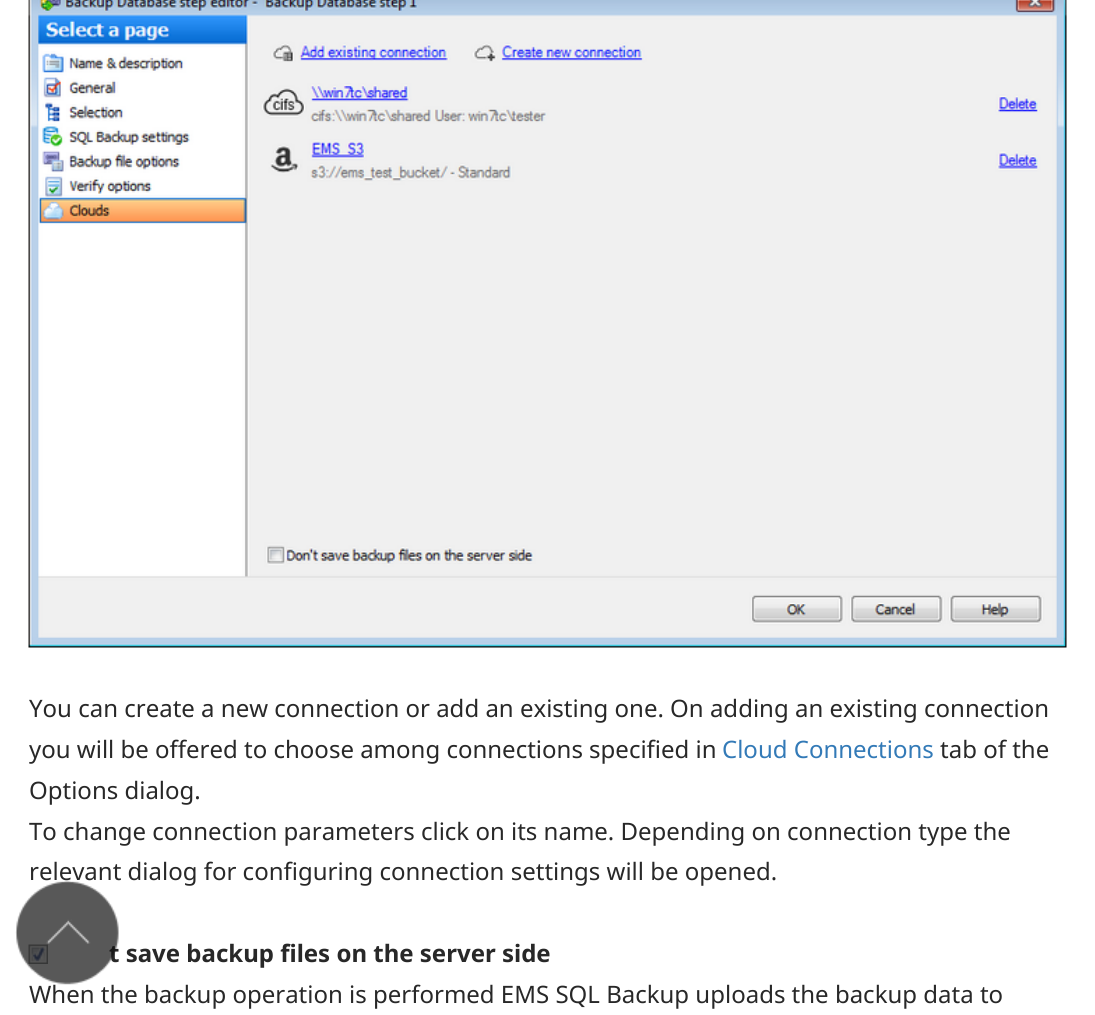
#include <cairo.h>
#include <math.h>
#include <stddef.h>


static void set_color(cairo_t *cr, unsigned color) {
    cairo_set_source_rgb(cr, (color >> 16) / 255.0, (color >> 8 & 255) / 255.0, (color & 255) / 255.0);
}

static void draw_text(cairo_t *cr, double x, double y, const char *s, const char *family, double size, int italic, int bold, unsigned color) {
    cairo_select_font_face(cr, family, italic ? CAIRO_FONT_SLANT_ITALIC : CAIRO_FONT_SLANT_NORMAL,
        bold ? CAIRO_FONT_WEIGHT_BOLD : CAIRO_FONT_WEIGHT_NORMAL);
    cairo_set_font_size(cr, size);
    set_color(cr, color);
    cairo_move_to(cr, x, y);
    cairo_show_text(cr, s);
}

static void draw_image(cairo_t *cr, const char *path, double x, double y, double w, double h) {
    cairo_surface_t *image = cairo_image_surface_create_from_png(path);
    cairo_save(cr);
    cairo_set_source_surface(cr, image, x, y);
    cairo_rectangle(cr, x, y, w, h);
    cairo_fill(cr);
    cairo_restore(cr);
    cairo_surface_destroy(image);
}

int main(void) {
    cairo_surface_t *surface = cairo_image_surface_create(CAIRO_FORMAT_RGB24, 1095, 1015);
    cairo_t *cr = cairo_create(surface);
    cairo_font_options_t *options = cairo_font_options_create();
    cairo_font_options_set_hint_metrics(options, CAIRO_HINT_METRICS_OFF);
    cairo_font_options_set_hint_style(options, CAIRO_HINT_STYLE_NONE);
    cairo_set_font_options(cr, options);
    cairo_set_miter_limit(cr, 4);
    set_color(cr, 0xFFFFFF);
    cairo_paint(cr);
    draw_image(cr, "assets/img1.png", 28, 0, 1039, 648);
    draw_text(cr, 29, 717, "You can create a new connection or add an existing one. On adding an existing connection", "Noto Sans", 24, 0, 0, 0x282828);
    draw_text(cr, 29, 758, "you will be offered to choose among connections specified in", "Noto Sans", 24, 0, 0, 0x282828);
    draw_text(cr, 722, 758, "Cloud Connections", "Noto Sans", 24, 0, 0, 0x337AB7);
    draw_text(cr, 940, 758, "tab of the", "Noto Sans", 24, 0, 0, 0x282828);
    draw_text(cr, 29, 799, "Options dialog.", "Noto Sans", 24, 0, 0, 0x282828);
    draw_text(cr, 29, 840, "To change connection parameters click on its name. Depending on connection type the", "Noto Sans", 24, 0, 0, 0x282828);
    draw_text(cr, 29, 880, "relevant dialog for configuring connection settings will be opened.", "Noto Sans", 24, 0, 0, 0x282828);
    draw_image(cr, "assets/img2.png", 28, 944, 20, 20);
    draw_text(cr, 109, 962, "t save backup files on the server side", "Noto Sans", 24, 0, 1, 0x282828);
    draw_text(cr, 29, 1003, "When the backup operation is performed EMS SQL Backup uploads the backup data to", "Noto Sans", 24, 0, 0, 0x282828);
    draw_image(cr, "assets/img3.png", 15, 880, 104, 105);
    cairo_surface_write_to_png(surface, "output.png");
    cairo_font_options_destroy(options);
    cairo_destroy(cr);
    cairo_surface_destroy(surface);
    return 0;
}
